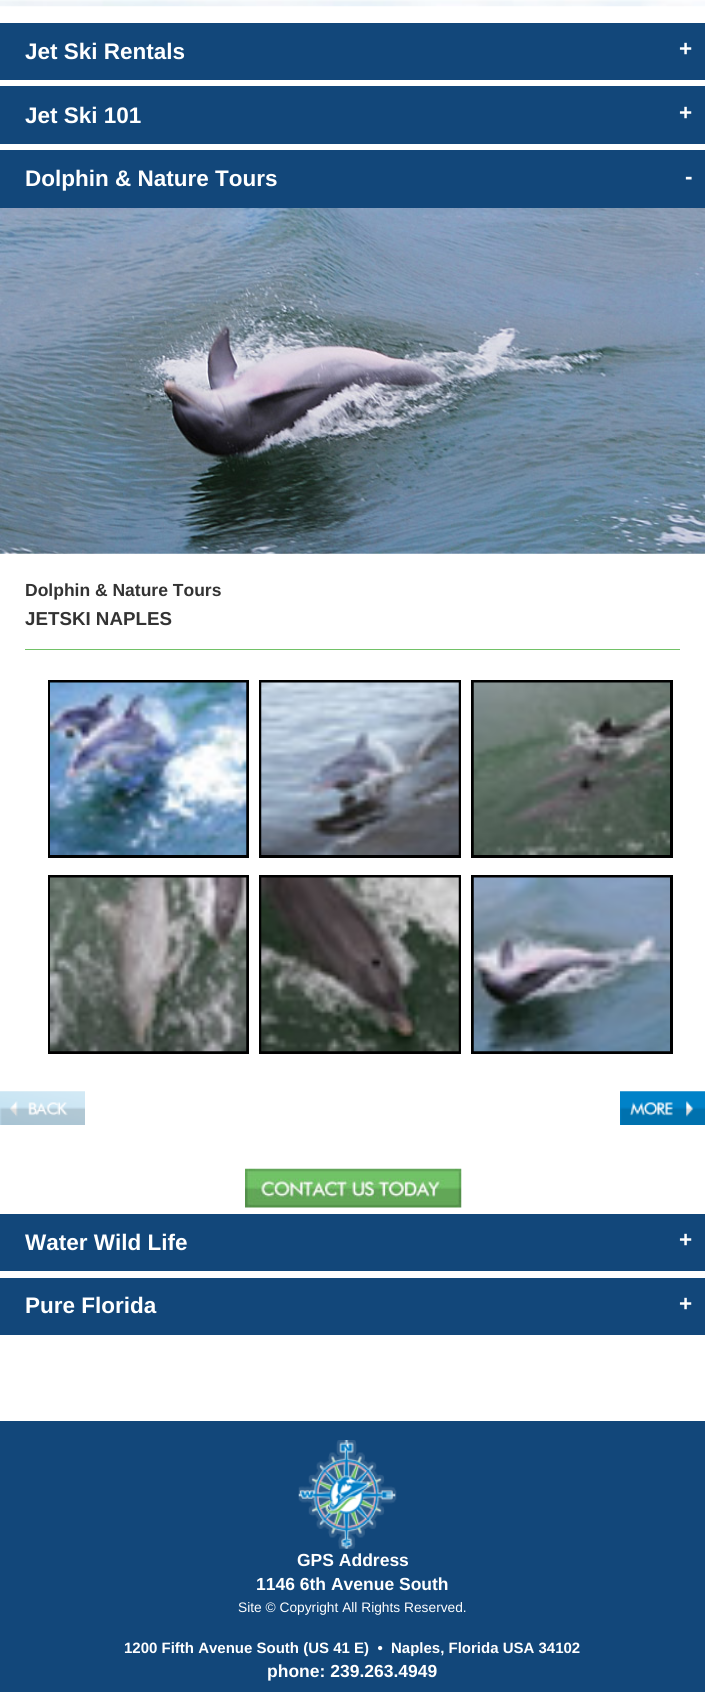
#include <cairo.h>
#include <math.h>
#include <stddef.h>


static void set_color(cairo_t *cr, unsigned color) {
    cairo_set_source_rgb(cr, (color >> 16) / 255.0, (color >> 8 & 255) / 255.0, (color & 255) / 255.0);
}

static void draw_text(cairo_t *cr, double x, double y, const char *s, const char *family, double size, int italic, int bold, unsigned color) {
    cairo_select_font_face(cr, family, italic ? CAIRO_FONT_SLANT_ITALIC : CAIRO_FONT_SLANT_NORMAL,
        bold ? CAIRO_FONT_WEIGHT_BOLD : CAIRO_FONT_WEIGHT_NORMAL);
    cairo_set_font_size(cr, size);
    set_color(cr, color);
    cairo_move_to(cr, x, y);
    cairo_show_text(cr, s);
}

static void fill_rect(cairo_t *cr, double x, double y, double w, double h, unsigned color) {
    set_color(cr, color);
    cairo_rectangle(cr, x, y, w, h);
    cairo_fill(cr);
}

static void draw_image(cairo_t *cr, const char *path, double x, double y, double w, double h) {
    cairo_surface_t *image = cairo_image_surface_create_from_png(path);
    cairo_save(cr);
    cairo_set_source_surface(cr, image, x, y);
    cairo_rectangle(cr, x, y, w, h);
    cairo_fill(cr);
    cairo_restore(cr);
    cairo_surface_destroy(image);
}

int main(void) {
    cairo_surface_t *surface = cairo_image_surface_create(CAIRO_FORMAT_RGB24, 705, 1692);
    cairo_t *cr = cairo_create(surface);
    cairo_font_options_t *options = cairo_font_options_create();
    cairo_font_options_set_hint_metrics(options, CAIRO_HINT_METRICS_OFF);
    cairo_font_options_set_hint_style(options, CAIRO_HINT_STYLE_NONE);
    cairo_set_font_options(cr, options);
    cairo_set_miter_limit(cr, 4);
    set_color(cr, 0xFFFFFF);
    cairo_paint(cr);
    draw_image(cr, "assets/img1.png", 0, 0, 705, 7);
    fill_rect(cr, 0, 23, 705, 57, 0x12477A);
    draw_text(cr, 25, 59, "Jet Ski Rentals", "Liberation Sans", 22.5, 0, 1, 0xFFFFFF);
    draw_text(cr, 679, 56, "+", "Liberation Sans", 22.5, 0, 1, 0xFFFFFF);
    fill_rect(cr, 0, 86, 705, 58, 0x12477A);
    draw_text(cr, 25, 123, "Jet Ski 101", "Liberation Sans", 22.5, 0, 1, 0xFFFFFF);
    draw_text(cr, 679, 120, "+", "Liberation Sans", 22.5, 0, 1, 0xFFFFFF);
    fill_rect(cr, 0, 150, 705, 58, 0x12477A);
    draw_text(cr, 25, 186, "Dolphin & Nature Tours", "Liberation Sans", 22.5, 0, 1, 0xFFFFFF);
    draw_text(cr, 685, 184, "-", "Liberation Sans", 22.5, 0, 1, 0xFFFFFF);
    draw_image(cr, "assets/img2.png", 0, 208, 705, 346);
    draw_text(cr, 25, 596, "Dolphin & Nature Tours", "Liberation Sans", 17.5, 0, 1, 0x333333);
    fill_rect(cr, 25, 649, 655, 1, 0x72C267);
    draw_text(cr, 25, 625, "JETSKI NAPLES", "Liberation Sans", 18.75, 0, 1, 0x333333);
    cairo_rectangle(cr, 49.5, 681.5, 198, 175);
    set_color(cr, 0x000000);
    cairo_set_line_width(cr, 3);
    cairo_stroke(cr);
    draw_image(cr, "assets/img3.png", 50, 682, 197, 173);
    cairo_rectangle(cr, 260.5, 681.5, 199, 175);
    cairo_stroke(cr);
    draw_image(cr, "assets/img4.png", 261, 682, 198, 173);
    cairo_rectangle(cr, 472.5, 681.5, 199, 175);
    cairo_stroke(cr);
    draw_image(cr, "assets/img5.png", 473, 682, 197, 173);
    cairo_rectangle(cr, 49.5, 876.5, 198, 176);
    cairo_stroke(cr);
    draw_image(cr, "assets/img6.png", 50, 877, 197, 175);
    cairo_rectangle(cr, 260.5, 876.5, 199, 176);
    cairo_stroke(cr);
    draw_image(cr, "assets/img7.png", 261, 877, 198, 175);
    cairo_rectangle(cr, 472.5, 876.5, 199, 176);
    cairo_stroke(cr);
    draw_image(cr, "assets/img8.png", 473, 877, 197, 175);
    draw_image(cr, "assets/img9.png", 0, 1091, 85, 34);
    draw_image(cr, "assets/img10.png", 620, 1091, 85, 34);
    draw_image(cr, "assets/img11.png", 245, 1168, 217, 40);
    fill_rect(cr, 0, 1214, 705, 57, 0x12477A);
    draw_text(cr, 25, 1250, "Water Wild Life", "Liberation Sans", 22.5, 0, 1, 0xFFFFFF);
    draw_text(cr, 679, 1247, "+", "Liberation Sans", 22.5, 0, 1, 0xFFFFFF);
    fill_rect(cr, 0, 1278, 705, 57, 0x12477A);
    draw_text(cr, 25, 1313, "Pure Florida", "Liberation Sans", 22.5, 0, 1, 0xFFFFFF);
    draw_text(cr, 679, 1311, "+", "Liberation Sans", 22.5, 0, 1, 0xFFFFFF);
    fill_rect(cr, 0, 1421, 705, 271, 0x12477A);
    draw_image(cr, "assets/img12.png", 298, 1440, 99, 109);
    draw_text(cr, 297, 1566, "GPS Address", "Liberation Sans", 17.5, 0, 1, 0xFFFFFF);
    draw_text(cr, 256, 1590, "1146 6th Avenue South", "Liberation Sans", 17.5, 0, 1, 0xFFFFFF);
    draw_text(cr, 238, 1612, "Site © Copyright All Rights Reserved.", "Liberation Sans", 13.75, 0, 0, 0xFFFFFF);
    draw_text(cr, 124, 1653, "1200 Fifth Avenue South (US 41 E)  •  Naples, Florida USA 34102", "Liberation Sans", 15, 0, 1, 0xFFFFFF);
    draw_text(cr, 267, 1677, "phone: 239.263.4949", "Liberation Sans", 17.5, 0, 1, 0xFFFFFF);
    cairo_surface_write_to_png(surface, "output.png");
    cairo_font_options_destroy(options);
    cairo_destroy(cr);
    cairo_surface_destroy(surface);
    return 0;
}
